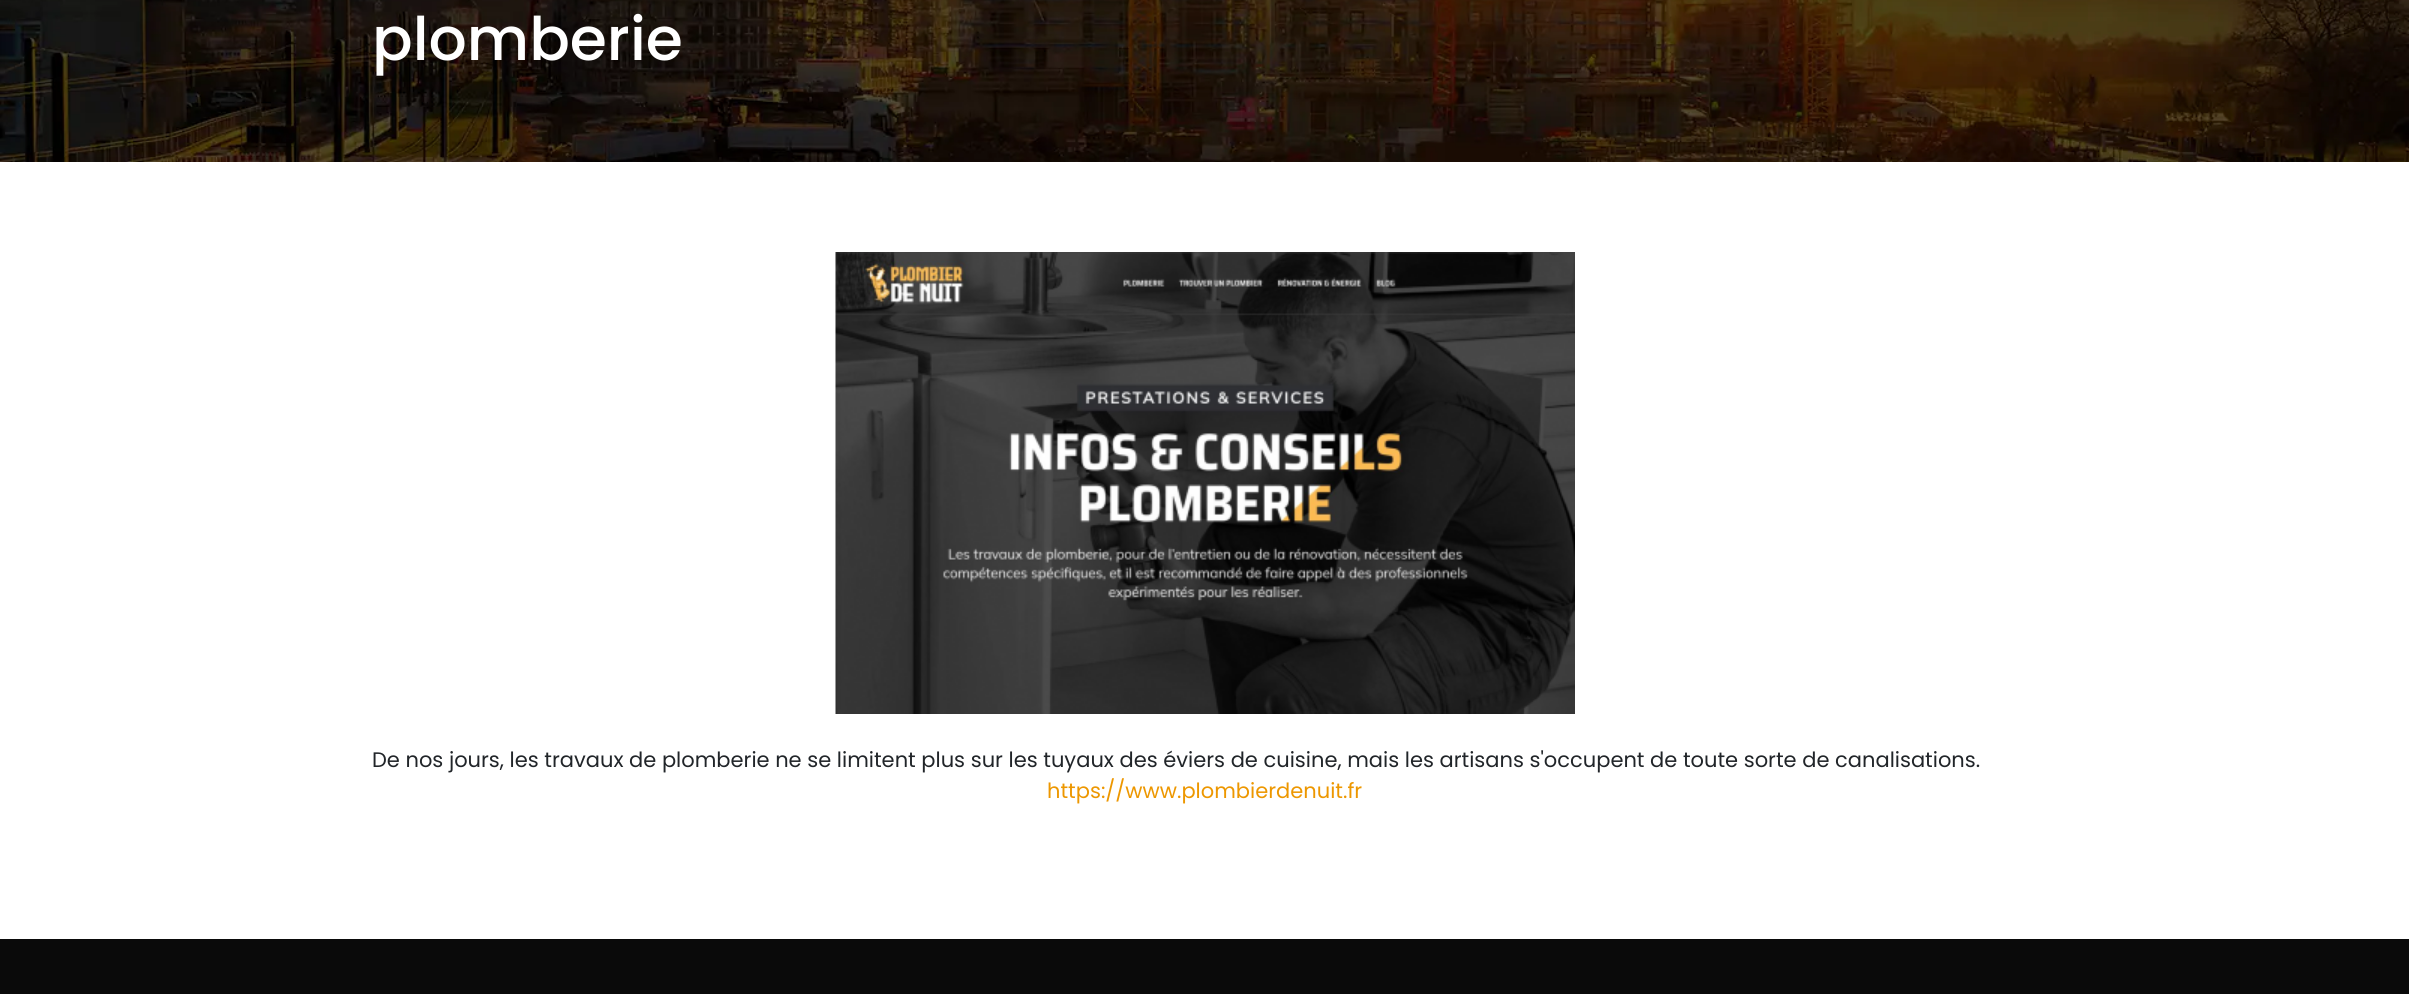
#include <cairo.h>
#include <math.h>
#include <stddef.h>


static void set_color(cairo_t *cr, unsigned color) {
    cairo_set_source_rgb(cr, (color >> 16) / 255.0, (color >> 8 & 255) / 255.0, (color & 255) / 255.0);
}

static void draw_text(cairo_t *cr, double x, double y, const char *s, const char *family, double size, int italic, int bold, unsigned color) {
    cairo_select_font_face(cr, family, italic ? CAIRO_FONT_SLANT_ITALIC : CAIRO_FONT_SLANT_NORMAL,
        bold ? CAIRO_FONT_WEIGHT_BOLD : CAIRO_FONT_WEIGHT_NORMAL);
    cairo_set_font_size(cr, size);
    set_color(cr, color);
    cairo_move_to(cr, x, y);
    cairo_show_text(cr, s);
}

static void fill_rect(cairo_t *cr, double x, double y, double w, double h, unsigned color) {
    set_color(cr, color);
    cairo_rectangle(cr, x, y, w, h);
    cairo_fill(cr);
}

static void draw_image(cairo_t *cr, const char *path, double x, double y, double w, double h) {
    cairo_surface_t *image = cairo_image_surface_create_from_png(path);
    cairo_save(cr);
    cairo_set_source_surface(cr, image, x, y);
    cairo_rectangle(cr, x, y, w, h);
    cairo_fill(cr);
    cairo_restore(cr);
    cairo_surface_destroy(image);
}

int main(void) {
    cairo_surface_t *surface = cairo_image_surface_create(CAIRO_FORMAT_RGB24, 2409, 994);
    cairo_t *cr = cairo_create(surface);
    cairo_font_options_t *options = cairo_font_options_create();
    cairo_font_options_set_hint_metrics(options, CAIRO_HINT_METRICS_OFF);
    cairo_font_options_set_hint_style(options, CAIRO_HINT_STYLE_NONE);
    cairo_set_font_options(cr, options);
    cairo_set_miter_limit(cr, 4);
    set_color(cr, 0xFFFFFF);
    cairo_paint(cr);
    draw_image(cr, "assets/img1.png", 0, 0, 2409, 162);
    draw_text(cr, 372, 60, "plomberie", "Poppins Medium", 60, 0, 0, 0xFFFFFF);
    draw_image(cr, "assets/img2.png", 835, 252, 740, 462);
    draw_text(cr, 372, 767, "De nos jours, les travaux de plomberie ne se limitent plus sur les tuyaux des éviers de cuisine, mais les artisans s'occupent de toute sorte de canalisations.", "Poppins", 21, 0, 0, 0x212529);
    draw_text(cr, 1047, 798, "https://www.plombierdenuit.fr", "Poppins", 21, 0, 0, 0xED9700);
    fill_rect(cr, 0, 939, 2409, 55, 0x0A0A0A);
    cairo_surface_write_to_png(surface, "output.png");
    cairo_font_options_destroy(options);
    cairo_destroy(cr);
    cairo_surface_destroy(surface);
    return 0;
}
